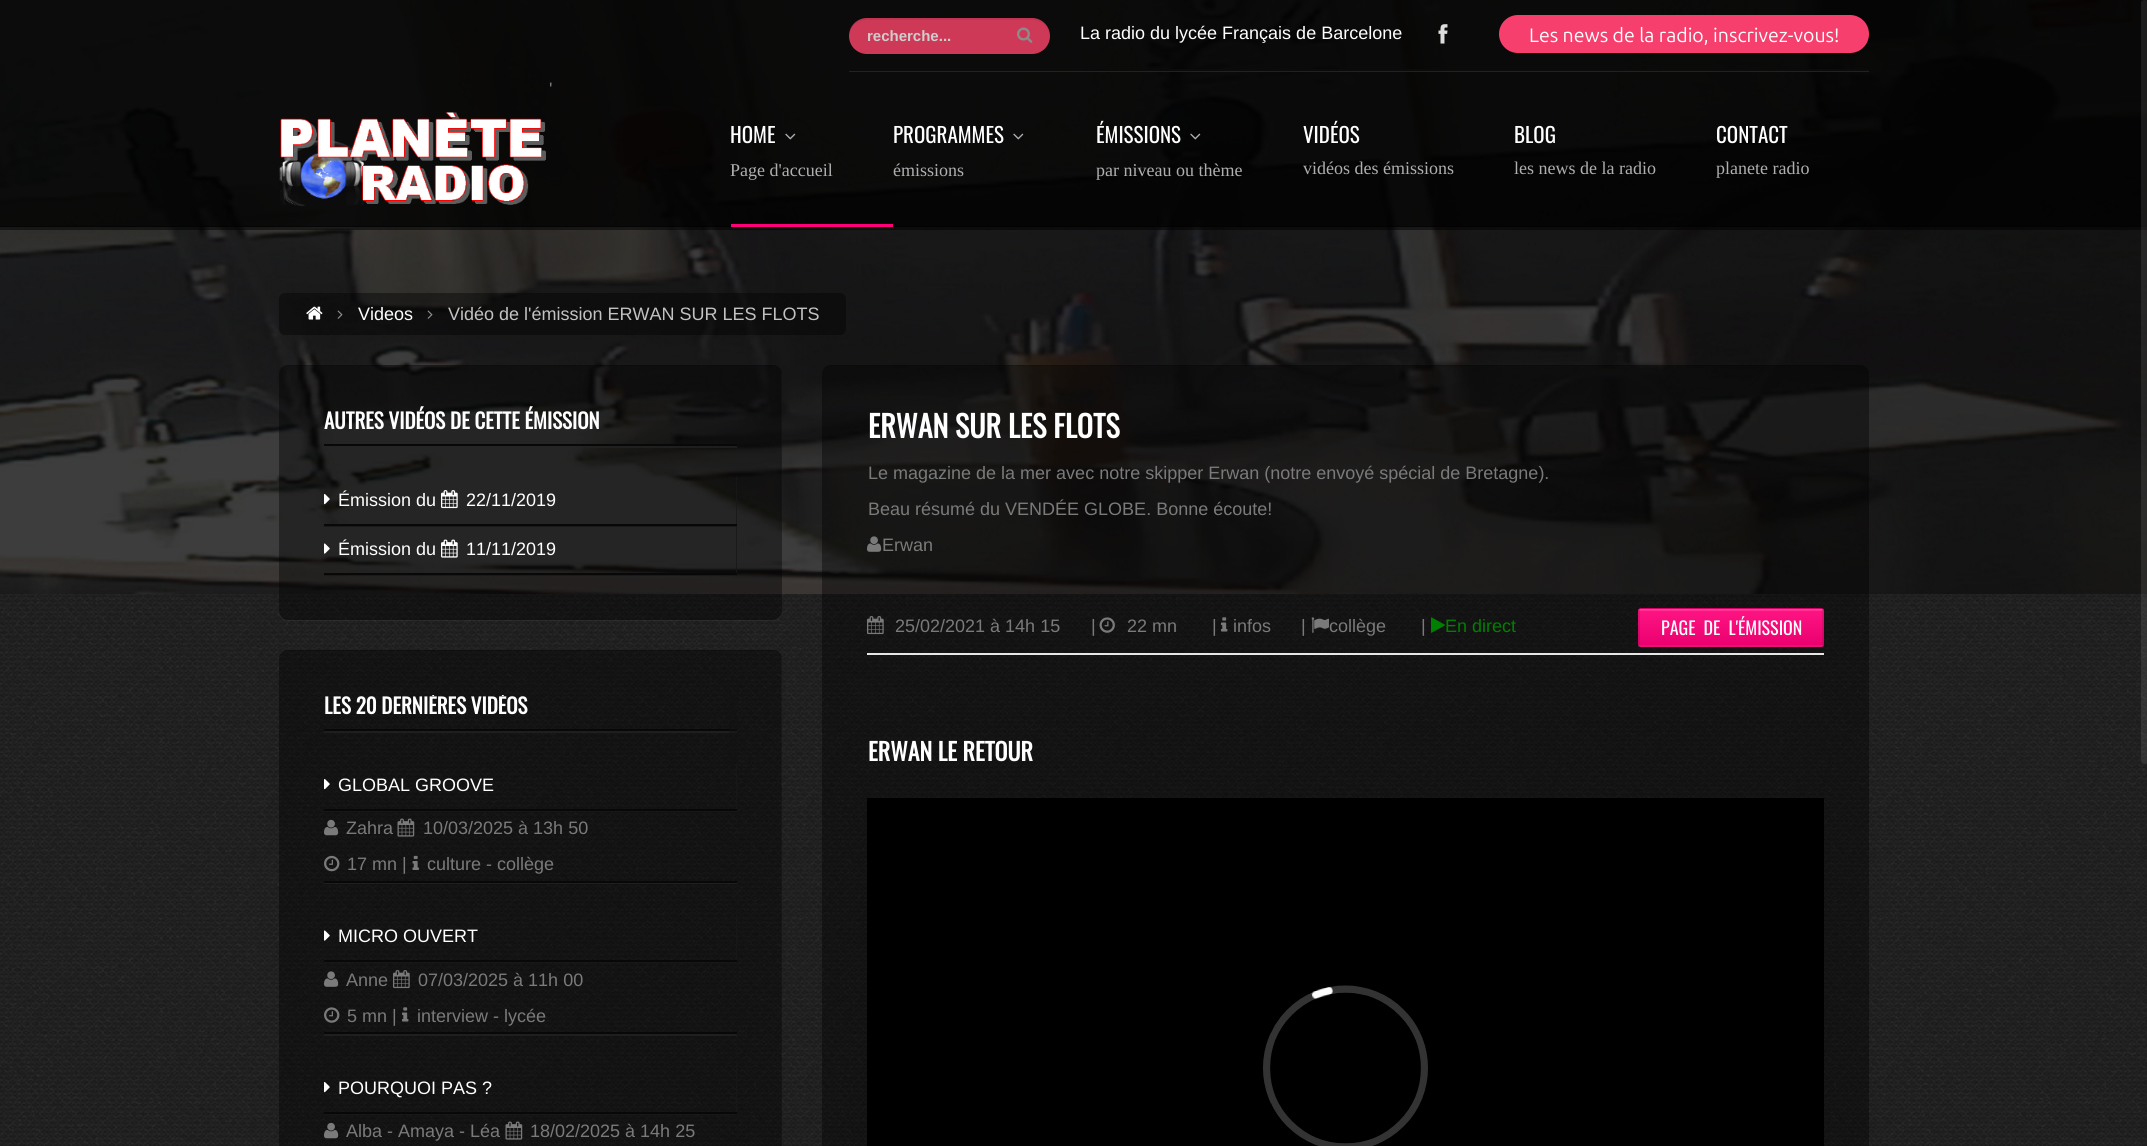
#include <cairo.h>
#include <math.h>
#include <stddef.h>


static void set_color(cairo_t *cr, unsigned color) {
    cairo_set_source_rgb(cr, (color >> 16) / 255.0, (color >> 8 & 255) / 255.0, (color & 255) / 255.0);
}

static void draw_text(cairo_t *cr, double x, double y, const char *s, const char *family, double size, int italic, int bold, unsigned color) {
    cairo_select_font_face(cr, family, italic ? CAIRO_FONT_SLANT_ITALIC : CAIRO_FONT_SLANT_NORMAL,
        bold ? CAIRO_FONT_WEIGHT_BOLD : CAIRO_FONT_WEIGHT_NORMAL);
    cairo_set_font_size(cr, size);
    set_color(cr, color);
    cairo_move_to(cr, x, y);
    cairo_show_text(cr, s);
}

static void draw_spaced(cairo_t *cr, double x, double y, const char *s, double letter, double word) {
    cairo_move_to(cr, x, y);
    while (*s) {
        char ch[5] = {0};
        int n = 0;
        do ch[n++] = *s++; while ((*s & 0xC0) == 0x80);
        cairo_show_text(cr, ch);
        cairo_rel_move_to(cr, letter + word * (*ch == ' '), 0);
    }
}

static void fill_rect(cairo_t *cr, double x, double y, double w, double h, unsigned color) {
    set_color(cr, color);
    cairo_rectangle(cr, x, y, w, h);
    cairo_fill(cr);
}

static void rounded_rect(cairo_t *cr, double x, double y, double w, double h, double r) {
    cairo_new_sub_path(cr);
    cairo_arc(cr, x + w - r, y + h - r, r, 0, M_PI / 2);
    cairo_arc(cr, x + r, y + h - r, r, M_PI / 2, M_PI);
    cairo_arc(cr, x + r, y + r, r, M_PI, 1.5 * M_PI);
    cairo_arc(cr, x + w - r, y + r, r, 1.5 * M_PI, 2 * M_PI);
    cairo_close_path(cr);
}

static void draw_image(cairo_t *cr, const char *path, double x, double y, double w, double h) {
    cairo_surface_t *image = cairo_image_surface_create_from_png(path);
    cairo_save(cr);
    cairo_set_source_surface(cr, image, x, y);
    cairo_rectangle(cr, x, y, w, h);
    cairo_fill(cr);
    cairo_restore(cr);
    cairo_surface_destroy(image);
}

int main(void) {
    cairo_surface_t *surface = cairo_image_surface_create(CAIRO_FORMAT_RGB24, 2147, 1146);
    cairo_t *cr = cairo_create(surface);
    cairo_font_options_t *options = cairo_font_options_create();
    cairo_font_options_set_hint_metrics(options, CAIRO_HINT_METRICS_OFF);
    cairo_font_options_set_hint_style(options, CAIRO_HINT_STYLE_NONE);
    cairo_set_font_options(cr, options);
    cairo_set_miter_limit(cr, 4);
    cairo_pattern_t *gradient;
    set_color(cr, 0xFFFFFF);
    cairo_paint(cr);
    draw_image(cr, "assets/img1.png", 0, 594, 2147, 552);
    draw_image(cr, "assets/img2.png", 0, 0, 2147, 594);
    cairo_set_source_rgba(cr, 0, 0, 0, 0.5);
    cairo_rectangle(cr, 0, 226, 2147, 4);
    cairo_fill(cr);
    cairo_set_source_rgba(cr, 0, 0, 0, 0.8);
    cairo_rectangle(cr, 0, 0, 2147, 227);
    cairo_fill(cr);
    cairo_set_source_rgba(cr, 0.165, 0.165, 0.165, 0.75);
    cairo_rectangle(cr, 849, 71, 1020, 1);
    cairo_fill(cr);
    fill_rect(cr, 1169, 69, 700, 2, 0x0B0B0B);
    set_color(cr, 0xCE3957);
    rounded_rect(cr, 849, 18, 201, 36, 18);
    cairo_fill(cr);
    cairo_set_source_rgba(cr, 0.008, 0.008, 0.008, 0.07);
    cairo_new_path(cr);
    cairo_move_to(cr, 867, 20);
    cairo_line_to(cr, 1032, 20);
    cairo_curve_to(cr, 1042, 20, 1049, 27, 1050, 37);
    cairo_line_to(cr, 1050, 36);
    cairo_curve_to(cr, 1050, 26, 1042, 18, 1032, 18);
    cairo_line_to(cr, 867, 18);
    cairo_curve_to(cr, 857, 18, 849, 26, 849, 36);
    cairo_line_to(cr, 849, 37);
    cairo_curve_to(cr, 850, 27, 857, 20, 867, 20);
    cairo_close_path(cr);
    cairo_fill(cr);
    draw_text(cr, 867, 41, "recherche...", "Liberation Sans", 15, 0, 1, 0xCECECE);
    draw_image(cr, "assets/img3.png", 1017, 27, 16, 16);
    draw_text(cr, 1080, 39, "La radio du lycée Français de Barcelone", "Liberation Sans", 18, 0, 0, 0xFFFFFF);
    draw_image(cr, "assets/img4.png", 1438, 24, 10, 20);
    set_color(cr, 0xF73F6E);
    rounded_rect(cr, 1499, 15, 370, 38, 19);
    cairo_fill(cr);
    draw_text(cr, 1529, 42, "Les news de la radio, inscrivez-vous!", "Ubuntu", 19.5, 0, 0, 0xFFFFFF);
    draw_image(cr, "assets/img5.png", 279, 112, 267, 94);
    draw_text(cr, 549, 95, "'", "Liberation Sans", 18, 0, 0, 0x7A7A7A);
    draw_text(cr, 730, 143, "HOME", "Oswald", 21, 0, 0, 0xFFFFFF);
    draw_image(cr, "assets/img6.png", 785, 133, 11, 7);
    draw_text(cr, 730, 176, "Page d'accueil", "Liberation Serif", 18, 0, 0, 0xAFAFAF);
    draw_text(cr, 893, 143, "PROGRAMMES", "Oswald", 21, 0, 0, 0xFFFFFF);
    draw_image(cr, "assets/img7.png", 1013, 133, 11, 7);
    draw_text(cr, 893, 176, "émissions", "Liberation Serif", 18, 0, 0, 0xAFAFAF);
    draw_text(cr, 1096, 143, "ÉMISSIONS", "Oswald", 21, 0, 0, 0xFFFFFF);
    draw_image(cr, "assets/img8.png", 1190, 133, 11, 7);
    draw_text(cr, 1096, 176, "par niveau ou thème", "Liberation Serif", 18, 0, 0, 0xAFAFAF);
    draw_text(cr, 1303, 143, "VIDÉOS", "Oswald", 21, 0, 0, 0xFFFFFF);
    draw_text(cr, 1303, 174, "vidéos des émissions", "Liberation Serif", 18, 0, 0, 0xAFAFAF);
    draw_text(cr, 1514, 143, "BLOG", "Oswald", 21, 0, 0, 0xFFFFFF);
    draw_text(cr, 1514, 174, "les news de la radio", "Liberation Serif", 18, 0, 0, 0xAFAFAF);
    draw_text(cr, 1716, 143, "CONTACT", "Oswald", 21, 0, 0, 0xFFFFFF);
    draw_text(cr, 1716, 174, "planete radio", "Liberation Serif", 18, 0, 0, 0xAFAFAF);
    fill_rect(cr, 731, 224, 162, 3, 0xFF0078);
    cairo_set_source_rgba(cr, 0, 0, 0, 0.4);
    rounded_rect(cr, 279, 293, 567, 42, 6);
    cairo_fill(cr);
    draw_image(cr, "assets/img9.png", 306, 306, 17, 14);
    draw_image(cr, "assets/img10.png", 337, 310, 6, 9);
    draw_text(cr, 358, 320, "Videos", "Liberation Sans", 18, 0, 0, 0xFFFFFF);
    draw_image(cr, "assets/img11.png", 427, 310, 6, 9);
    draw_text(cr, 448, 320, "Vidéo de l'émission ERWAN SUR LES FLOTS", "Liberation Sans", 18, 0, 0, 0xC2C2C2);
    cairo_set_source_rgba(cr, 1, 1, 1, 0.04);
    cairo_new_path(cr);
    cairo_move_to(cr, 279, 610);
    cairo_line_to(cr, 279, 612);
    cairo_curve_to(cr, 279, 617, 283, 621, 288, 621);
    cairo_line_to(cr, 773, 621);
    cairo_curve_to(cr, 778, 621, 782, 617, 782, 612);
    cairo_line_to(cr, 782, 375);
    cairo_line_to(cr, 781, 371);
    cairo_line_to(cr, 782, 610);
    cairo_curve_to(cr, 782, 615, 777, 620, 772, 620);
    cairo_line_to(cr, 288, 620);
    cairo_curve_to(cr, 283, 620, 279, 615, 279, 610);
    cairo_close_path(cr);
    cairo_fill(cr);
    cairo_set_source_rgba(cr, 0, 0, 0, 0.4);
    rounded_rect(cr, 279, 365, 503, 255, 9);
    cairo_fill(cr);
    cairo_set_source_rgba(cr, 0, 0, 0, 0.15);
    cairo_new_path(cr);
    cairo_move_to(cr, 288, 366);
    cairo_line_to(cr, 772, 366);
    cairo_curve_to(cr, 777, 366, 782, 370, 782, 375);
    cairo_curve_to(cr, 782, 370, 779, 365, 773, 365);
    cairo_line_to(cr, 288, 365);
    cairo_curve_to(cr, 282, 365, 279, 370, 279, 375);
    cairo_curve_to(cr, 279, 370, 283, 366, 288, 366);
    cairo_close_path(cr);
    cairo_fill(cr);
    draw_text(cr, 324, 429, "AUTRES VIDÉOS DE CETTE ÉMISSION", "Oswald", 21, 0, 1, 0xFFFFFF);
    cairo_set_source_rgba(cr, 0.133, 0.133, 0.133, 0.8);
    cairo_rectangle(cr, 587, 446, 150, 2);
    cairo_fill(cr);
    fill_rect(cr, 324, 444, 413, 2, 0x080808);
    cairo_set_source_rgba(cr, 0.094, 0.094, 0.094, 0.8);
    cairo_new_path(cr);
    cairo_move_to(cr, 324, 525);
    cairo_line_to(cr, 324, 527);
    cairo_line_to(cr, 737, 527);
    cairo_line_to(cr, 737, 477);
    cairo_line_to(cr, 736, 477);
    cairo_line_to(cr, 736, 525);
    cairo_close_path(cr);
    cairo_fill(cr);
    fill_rect(cr, 324, 524, 413, 2, 0x080808);
    draw_image(cr, "assets/img12.png", 324, 494, 6, 11);
    draw_text(cr, 338, 506, "Émission du", "Liberation Sans", 18, 0, 0, 0xFFFFFF);
    draw_image(cr, "assets/img13.png", 441, 490, 17, 19);
    draw_text(cr, 466, 506, "22/11/2019", "Liberation Sans", 18, 0, 0, 0xFFFFFF);
    cairo_set_source_rgba(cr, 0.094, 0.094, 0.094, 0.8);
    cairo_new_path(cr);
    cairo_move_to(cr, 324, 574);
    cairo_line_to(cr, 324, 576);
    cairo_line_to(cr, 737, 576);
    cairo_line_to(cr, 737, 527);
    cairo_line_to(cr, 736, 527);
    cairo_line_to(cr, 736, 574);
    cairo_close_path(cr);
    cairo_fill(cr);
    fill_rect(cr, 324, 573, 413, 2, 0x080808);
    draw_image(cr, "assets/img14.png", 324, 543, 6, 11);
    draw_text(cr, 338, 555, "Émission du", "Liberation Sans", 18, 0, 0, 0xFFFFFF);
    draw_image(cr, "assets/img15.png", 441, 539, 17, 19);
    draw_text(cr, 466, 555, "11/11/2019", "Liberation Sans", 18, 0, 0, 0xFFFFFF);
    cairo_set_source_rgba(cr, 1, 1, 1, 0.04);
    cairo_new_path(cr);
    cairo_move_to(cr, 279, 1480);
    cairo_line_to(cr, 279, 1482);
    cairo_curve_to(cr, 279, 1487, 283, 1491, 288, 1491);
    cairo_line_to(cr, 773, 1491);
    cairo_curve_to(cr, 778, 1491, 782, 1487, 782, 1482);
    cairo_line_to(cr, 782, 660);
    cairo_line_to(cr, 781, 656);
    cairo_line_to(cr, 782, 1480);
    cairo_curve_to(cr, 782, 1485, 777, 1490, 772, 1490);
    cairo_line_to(cr, 288, 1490);
    cairo_curve_to(cr, 283, 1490, 279, 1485, 279, 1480);
    cairo_close_path(cr);
    cairo_fill(cr);
    cairo_set_source_rgba(cr, 0, 0, 0, 0.4);
    rounded_rect(cr, 279, 650, 503, 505, 9);
    cairo_fill(cr);
    cairo_set_source_rgba(cr, 0, 0, 0, 0.15);
    cairo_new_path(cr);
    cairo_move_to(cr, 288, 651);
    cairo_line_to(cr, 772, 651);
    cairo_curve_to(cr, 777, 651, 782, 655, 782, 660);
    cairo_curve_to(cr, 782, 655, 779, 650, 773, 650);
    cairo_line_to(cr, 288, 650);
    cairo_curve_to(cr, 282, 650, 279, 655, 279, 660);
    cairo_curve_to(cr, 279, 655, 283, 651, 288, 651);
    cairo_close_path(cr);
    cairo_fill(cr);
    cairo_save(cr);
    cairo_rectangle(cr, 324, 695, 413, 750);
    cairo_clip(cr);
    draw_text(cr, 324, 714, "LES 20 DERNIÈRES VIDÉOS", "Oswald", 21, 0, 1, 0xFFFFFF);
    cairo_restore(cr);
    cairo_set_source_rgba(cr, 0.133, 0.133, 0.133, 0.8);
    cairo_rectangle(cr, 324, 731, 413, 2);
    cairo_fill(cr);
    fill_rect(cr, 324, 729, 413, 2, 0x080808);
    cairo_set_source_rgba(cr, 0.094, 0.094, 0.094, 0.8);
    cairo_new_path(cr);
    cairo_move_to(cr, 324, 810);
    cairo_line_to(cr, 324, 812);
    cairo_line_to(cr, 737, 812);
    cairo_line_to(cr, 737, 762);
    cairo_line_to(cr, 736, 762);
    cairo_line_to(cr, 736, 810);
    cairo_close_path(cr);
    cairo_fill(cr);
    fill_rect(cr, 324, 809, 413, 2, 0x080808);
    draw_image(cr, "assets/img16.png", 324, 779, 6, 11);
    draw_text(cr, 338, 791, "GLOBAL GROOVE", "Liberation Sans", 18, 0, 0, 0xFFFFFF);
    draw_image(cr, "assets/img17.png", 324, 819, 15, 17);
    draw_text(cr, 346, 834, "Zahra", "Liberation Sans", 18, 0, 0, 0x7A7A7A);
    draw_image(cr, "assets/img18.png", 397, 818, 18, 19);
    draw_text(cr, 423, 834, "10/03/2025 à 13h 50", "Liberation Sans", 18, 0, 0, 0x7A7A7A);
    draw_image(cr, "assets/img19.png", 324, 855, 16, 17);
    draw_text(cr, 347, 870, "17 mn |", "Liberation Sans", 18, 0, 0, 0x7A7A7A);
    draw_image(cr, "assets/img20.png", 412, 855, 7, 15);
    draw_text(cr, 427, 870, "culture - collège", "Liberation Sans", 18, 0, 0, 0x7A7A7A);
    cairo_set_source_rgba(cr, 0.133, 0.133, 0.133, 0.8);
    cairo_rectangle(cr, 324, 883, 413, 1);
    cairo_fill(cr);
    fill_rect(cr, 324, 881, 413, 2, 0x080808);
    cairo_set_source_rgba(cr, 0.094, 0.094, 0.094, 0.8);
    cairo_new_path(cr);
    cairo_move_to(cr, 324, 962);
    cairo_line_to(cr, 324, 963);
    cairo_line_to(cr, 737, 963);
    cairo_line_to(cr, 737, 914);
    cairo_line_to(cr, 736, 914);
    cairo_line_to(cr, 736, 962);
    cairo_close_path(cr);
    cairo_fill(cr);
    fill_rect(cr, 324, 960, 413, 2, 0x080808);
    draw_image(cr, "assets/img21.png", 324, 930, 6, 11);
    draw_text(cr, 338, 942, "MICRO OUVERT", "Liberation Sans", 18, 0, 0, 0xFFFFFF);
    draw_image(cr, "assets/img22.png", 393, 970, 17, 19);
    draw_text(cr, 418, 986, "07/03/2025 à 11h 00", "Liberation Sans", 18, 0, 0, 0x7A7A7A);
    draw_image(cr, "assets/img23.png", 324, 1007, 16, 16);
    draw_text(cr, 347, 1022, "5 mn |", "Liberation Sans", 18, 0, 0, 0x7A7A7A);
    draw_image(cr, "assets/img24.png", 324, 971, 15, 16);
    draw_text(cr, 346, 986, "Anne", "Liberation Sans", 18, 0, 0, 0x7A7A7A);
    draw_image(cr, "assets/img25.png", 402, 1007, 7, 15);
    draw_text(cr, 417, 1022, "interview - lycée", "Liberation Sans", 18, 0, 0, 0x7A7A7A);
    cairo_set_source_rgba(cr, 0.133, 0.133, 0.133, 0.8);
    cairo_rectangle(cr, 324, 1034, 413, 2);
    cairo_fill(cr);
    fill_rect(cr, 324, 1032, 413, 2, 0x080808);
    cairo_set_source_rgba(cr, 0.094, 0.094, 0.094, 0.8);
    cairo_new_path(cr);
    cairo_move_to(cr, 324, 1113);
    cairo_line_to(cr, 324, 1115);
    cairo_line_to(cr, 737, 1115);
    cairo_line_to(cr, 737, 1065);
    cairo_line_to(cr, 736, 1065);
    cairo_line_to(cr, 736, 1113);
    cairo_close_path(cr);
    cairo_fill(cr);
    fill_rect(cr, 324, 1112, 413, 2, 0x080808);
    draw_image(cr, "assets/img26.png", 324, 1082, 6, 11);
    draw_text(cr, 338, 1094, "POURQUOI PAS ?", "Liberation Sans", 18, 0, 0, 0xFFFFFF);
    draw_image(cr, "assets/img27.png", 324, 1122, 15, 17);
    draw_text(cr, 346, 1137, "Alba - Amaya - Léa", "Liberation Sans", 18, 0, 0, 0x7A7A7A);
    draw_image(cr, "assets/img28.png", 505, 1121, 18, 19);
    draw_text(cr, 530, 1137, "18/02/2025 à 14h 25", "Liberation Sans", 18, 0, 0, 0x7A7A7A);
    cairo_set_source_rgba(cr, 0, 0, 0, 0.4);
    rounded_rect(cr, 822, 365, 1047, 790, 9);
    cairo_fill(cr);
    cairo_set_source_rgba(cr, 0, 0, 0, 0.15);
    cairo_new_path(cr);
    cairo_move_to(cr, 831, 366);
    cairo_line_to(cr, 1860, 366);
    cairo_curve_to(cr, 1865, 366, 1869, 370, 1869, 375);
    cairo_curve_to(cr, 1869, 370, 1866, 365, 1860, 365);
    cairo_line_to(cr, 831, 365);
    cairo_curve_to(cr, 825, 365, 822, 370, 822, 375);
    cairo_curve_to(cr, 822, 370, 826, 366, 831, 366);
    cairo_close_path(cr);
    cairo_fill(cr);
    draw_text(cr, 868, 438, "ERWAN SUR LES FLOTS", "Oswald", 30, 0, 1, 0xFFFFFF);
    draw_text(cr, 868, 479, "Le magazine de la mer avec notre skipper Erwan (notre envoyé spécial de Bretagne).", "Liberation Sans", 18, 0, 0, 0x7A7A7A);
    draw_text(cr, 868, 515, "Beau résumé du VENDÉE GLOBE. Bonne écoute!", "Liberation Sans", 18, 0, 0, 0x7A7A7A);
    draw_image(cr, "assets/img29.png", 867, 536, 15, 16);
    draw_text(cr, 882, 551, "Erwan", "Liberation Sans", 18, 0, 0, 0x7A7A7A);
    draw_image(cr, "assets/img30.png", 867, 616, 17, 19);
    draw_text(cr, 895, 632, "25/02/2021 à 14h 15", "Liberation Sans", 18, 0, 0, 0x7A7A7A);
    draw_text(cr, 1091, 632, "|", "Liberation Sans", 18, 0, 0, 0x7A7A7A);
    draw_image(cr, "assets/img31.png", 1099, 617, 16, 16);
    draw_text(cr, 1127, 632, "22 mn", "Liberation Sans", 18, 0, 0, 0x7A7A7A);
    draw_text(cr, 1212, 632, "|", "Liberation Sans", 18, 0, 0, 0x7A7A7A);
    draw_image(cr, "assets/img32.png", 1221, 617, 7, 15);
    draw_text(cr, 1233, 632, "infos", "Liberation Sans", 18, 0, 0, 0x7A7A7A);
    draw_text(cr, 1301, 632, "|", "Liberation Sans", 18, 0, 0, 0x7A7A7A);
    draw_image(cr, "assets/img33.png", 1311, 617, 18, 16);
    draw_text(cr, 1329, 632, "collège", "Liberation Sans", 18, 0, 0, 0x7A7A7A);
    draw_text(cr, 1421, 632, "|", "Liberation Sans", 18, 0, 0, 0x7A7A7A);
    draw_image(cr, "assets/img34.png", 1431, 617, 14, 16);
    draw_text(cr, 1445, 632, "En direct", "Liberation Sans", 18, 0, 0, 0x008000);
    set_color(cr, 0xFF0078);
    rounded_rect(cr, 1638, 608, 186, 39, 3);
    cairo_fill(cr);
    gradient = cairo_pattern_create_linear(1640, 609, 1640, 573);
    cairo_pattern_add_color_stop_rgba(gradient, 0, 0, 0, 0, 0.08);
    cairo_pattern_add_color_stop_rgba(gradient, 0.5, 0.502, 0.502, 0.502, 0.08);
    cairo_pattern_add_color_stop_rgba(gradient, 1, 1, 1, 1, 0.08);
    cairo_set_source(cr, gradient);
    cairo_pattern_destroy(gradient);
    cairo_rectangle(cr, 1638, 608, 186, 1);
    cairo_fill(cr);
    gradient = cairo_pattern_create_linear(1640, 645, 1640, 609);
    cairo_pattern_add_color_stop_rgba(gradient, 0, 0, 0, 0, 0.08);
    cairo_pattern_add_color_stop_rgba(gradient, 0.5, 0.502, 0.502, 0.502, 0.08);
    cairo_pattern_add_color_stop_rgba(gradient, 1, 1, 1, 1, 0.08);
    cairo_set_source(cr, gradient);
    cairo_pattern_destroy(gradient);
    cairo_rectangle(cr, 1638, 609, 186, 36);
    cairo_fill(cr);
    gradient = cairo_pattern_create_linear(1640, 681, 1640, 645);
    cairo_pattern_add_color_stop_rgba(gradient, 0, 0, 0, 0, 0.08);
    cairo_pattern_add_color_stop_rgba(gradient, 0.5, 0.502, 0.502, 0.502, 0.08);
    cairo_pattern_add_color_stop_rgba(gradient, 1, 1, 1, 1, 0.08);
    cairo_set_source(cr, gradient);
    cairo_pattern_destroy(gradient);
    cairo_rectangle(cr, 1638, 645, 186, 2);
    cairo_fill(cr);
    rounded_rect(cr, 1639, 609, 184, 37, 2);
    cairo_set_source_rgba(cr, 0, 0, 0, 0.1);
    cairo_stroke(cr);
    draw_image(cr, "assets/img35.png", 1639, 609, 184, 2);
    cairo_select_font_face(cr, "Oswald", CAIRO_FONT_SLANT_NORMAL, CAIRO_FONT_WEIGHT_NORMAL);
    set_color(cr, 0xFFFFFF);
    draw_spaced(cr, 1661, 635, "PAGE DE L'ÉMISSION", 0, 4);
    fill_rect(cr, 867, 653, 957, 2, 0xE6E6E6);
    draw_text(cr, 868, 761, "ERWAN LE RETOUR", "Oswald", 24, 0, 1, 0xFFFFFF);
    draw_image(cr, "assets/img36.png", 867, 798, 957, 348);
    cairo_set_source_rgba(cr, 0.867, 0.867, 0.867, 0.1);
    rounded_rect(cr, 2141, 0, 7, 764, 3);
    cairo_fill(cr);
    cairo_set_source_rgba(cr, 0.071, 0.071, 0.071, 0.42);
    rounded_rect(cr, 729, 695, 8, 70, 3);
    cairo_fill(cr);
    cairo_surface_write_to_png(surface, "output.png");
    cairo_font_options_destroy(options);
    cairo_destroy(cr);
    cairo_surface_destroy(surface);
    return 0;
}
